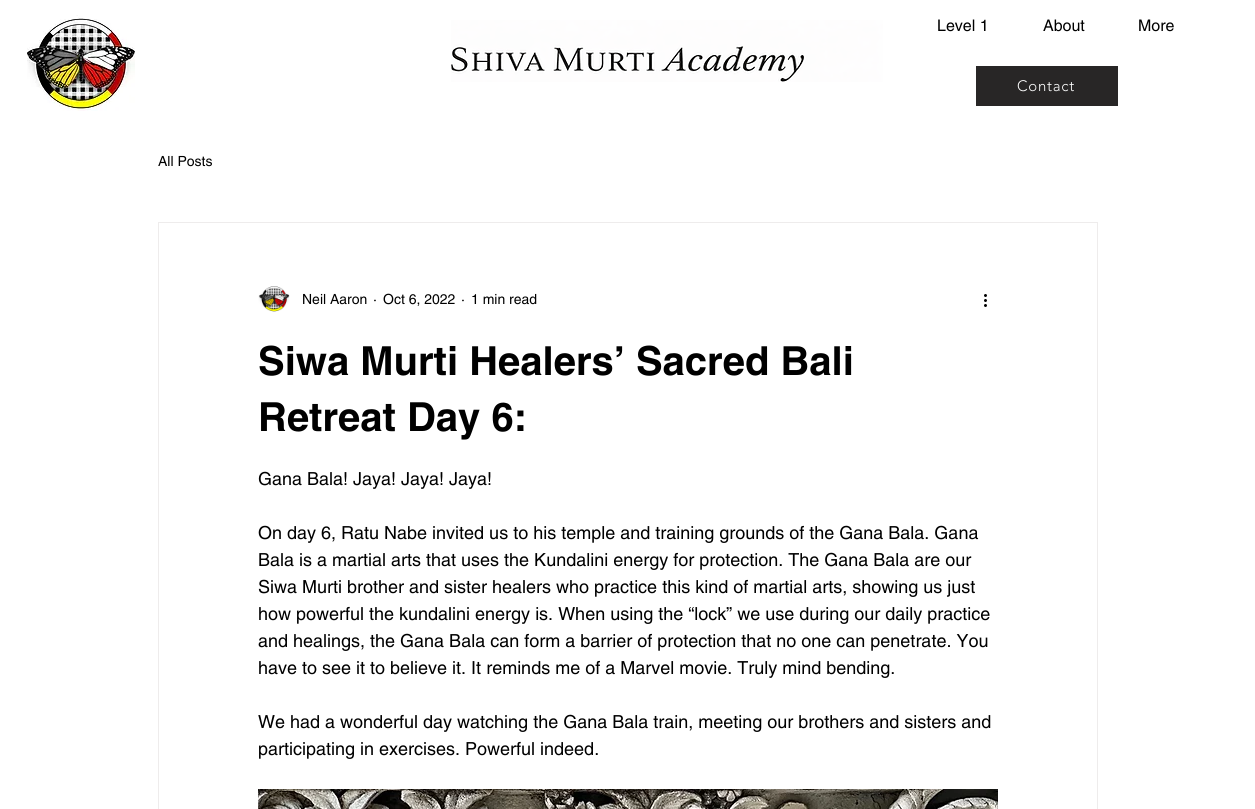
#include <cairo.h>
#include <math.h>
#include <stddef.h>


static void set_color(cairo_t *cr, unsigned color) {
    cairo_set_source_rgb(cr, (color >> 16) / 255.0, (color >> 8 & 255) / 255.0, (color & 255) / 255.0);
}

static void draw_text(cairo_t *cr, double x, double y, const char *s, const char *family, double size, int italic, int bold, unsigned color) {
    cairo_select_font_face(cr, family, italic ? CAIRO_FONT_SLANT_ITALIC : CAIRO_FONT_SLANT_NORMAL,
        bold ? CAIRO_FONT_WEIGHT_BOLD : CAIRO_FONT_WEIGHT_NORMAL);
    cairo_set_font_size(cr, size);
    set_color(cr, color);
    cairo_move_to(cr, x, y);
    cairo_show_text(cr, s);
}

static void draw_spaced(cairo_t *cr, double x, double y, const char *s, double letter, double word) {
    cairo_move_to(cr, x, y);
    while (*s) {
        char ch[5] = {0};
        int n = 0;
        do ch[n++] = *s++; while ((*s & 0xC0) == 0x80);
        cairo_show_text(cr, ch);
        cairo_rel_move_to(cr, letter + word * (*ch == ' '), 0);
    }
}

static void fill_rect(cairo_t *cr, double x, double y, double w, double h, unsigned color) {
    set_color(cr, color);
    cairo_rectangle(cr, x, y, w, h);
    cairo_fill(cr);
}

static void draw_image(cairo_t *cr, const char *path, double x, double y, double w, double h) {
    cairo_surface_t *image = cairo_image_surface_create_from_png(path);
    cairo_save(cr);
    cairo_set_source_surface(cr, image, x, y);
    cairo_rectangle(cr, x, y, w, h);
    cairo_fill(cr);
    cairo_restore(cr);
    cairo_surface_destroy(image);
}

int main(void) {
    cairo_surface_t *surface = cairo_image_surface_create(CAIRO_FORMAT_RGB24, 1255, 809);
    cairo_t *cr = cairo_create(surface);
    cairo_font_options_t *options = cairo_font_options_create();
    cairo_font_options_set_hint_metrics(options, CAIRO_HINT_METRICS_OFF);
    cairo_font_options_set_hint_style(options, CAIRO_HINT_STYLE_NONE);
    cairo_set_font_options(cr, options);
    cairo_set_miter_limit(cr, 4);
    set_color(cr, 0xFFFFFF);
    cairo_paint(cr);
    draw_image(cr, "assets/img1.png", 27, 15, 108, 96);
    draw_image(cr, "assets/img2.png", 451, 20, 432, 62);
    draw_text(cr, 937, 31, "Level 1", "helvetica", 16, 0, 0, 0x000000);
    draw_text(cr, 1043, 31, "About", "helvetica", 16, 0, 0, 0x000000);
    draw_text(cr, 1138, 31, "More", "helvetica", 16, 0, 0, 0x000000);
    fill_rect(cr, 976, 66, 142, 40, 0x282626);
    cairo_select_font_face(cr, "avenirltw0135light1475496 Light", CAIRO_FONT_SLANT_NORMAL, CAIRO_FONT_WEIGHT_NORMAL);
    cairo_set_font_size(cr, 15);
    set_color(cr, 0xFFFFFF);
    draw_spaced(cr, 1017, 91, "Contact", 0.75, 0);
    draw_text(cr, 158, 166, "All Posts", "helvetica", 14, 0, 0, 0x000000);
    cairo_rectangle(cr, 158.5, 222.5, 939, 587);
    set_color(cr, 0xEEECEC);
    cairo_set_line_width(cr, 1);
    cairo_stroke(cr);
    draw_image(cr, "assets/img3.png", 258, 286, 32, 26);
    draw_text(cr, 302, 304, "Neil Aaron", "helvetica", 14, 0, 0, 0x000000);
    draw_text(cr, 373, 304, "·", "helvetica", 14, 0, 0, 0x000000);
    draw_text(cr, 383, 304, "Oct 6, 2022", "helvetica", 14, 0, 0, 0x000000);
    draw_text(cr, 461, 304, "·", "helvetica", 14, 0, 0, 0x000000);
    draw_text(cr, 471, 304, "1 min read", "helvetica", 14, 0, 0, 0x000000);
    draw_image(cr, "assets/img4.png", 984, 294, 3, 13);
    draw_text(cr, 258, 375, "Siwa Murti Healers’ Sacred Bali", "helvetica", 40, 0, 1, 0x000000);
    draw_text(cr, 258, 431, "Retreat Day 6:", "helvetica", 40, 0, 1, 0x000000);
    draw_text(cr, 258, 485, "Gana Bala! Jaya! Jaya! Jaya!", "helvetica", 18, 0, 0, 0x000000);
    draw_text(cr, 258, 539, "On day 6, Ratu Nabe invited us to his temple and training grounds of the Gana Bala. Gana", "helvetica", 18, 0, 0, 0x000000);
    draw_text(cr, 258, 566, "Bala is a martial arts that uses the Kundalini energy for protection. The Gana Bala are our", "helvetica", 18, 0, 0, 0x000000);
    draw_text(cr, 258, 593, "Siwa Murti brother and sister healers who practice this kind of martial arts, showing us just", "helvetica", 18, 0, 0, 0x000000);
    draw_text(cr, 258, 620, "how powerful the kundalini energy is. When using the “lock” we use during our daily practice", "helvetica", 18, 0, 0, 0x000000);
    draw_text(cr, 258, 647, "and healings, the Gana Bala can form a barrier of protection that no one can penetrate. You", "helvetica", 18, 0, 0, 0x000000);
    draw_text(cr, 258, 674, "have to see it to believe it. It reminds me of a Marvel movie. Truly mind bending.", "helvetica", 18, 0, 0, 0x000000);
    draw_text(cr, 258, 728, "We had a wonderful day watching the Gana Bala train, meeting our brothers and sisters and", "helvetica", 18, 0, 0, 0x000000);
    draw_text(cr, 258, 755, "participating in exercises. Powerful indeed.", "helvetica", 18, 0, 0, 0x000000);
    draw_image(cr, "assets/img5.png", 258, 789, 740, 20);
    cairo_surface_write_to_png(surface, "output.png");
    cairo_font_options_destroy(options);
    cairo_destroy(cr);
    cairo_surface_destroy(surface);
    return 0;
}
